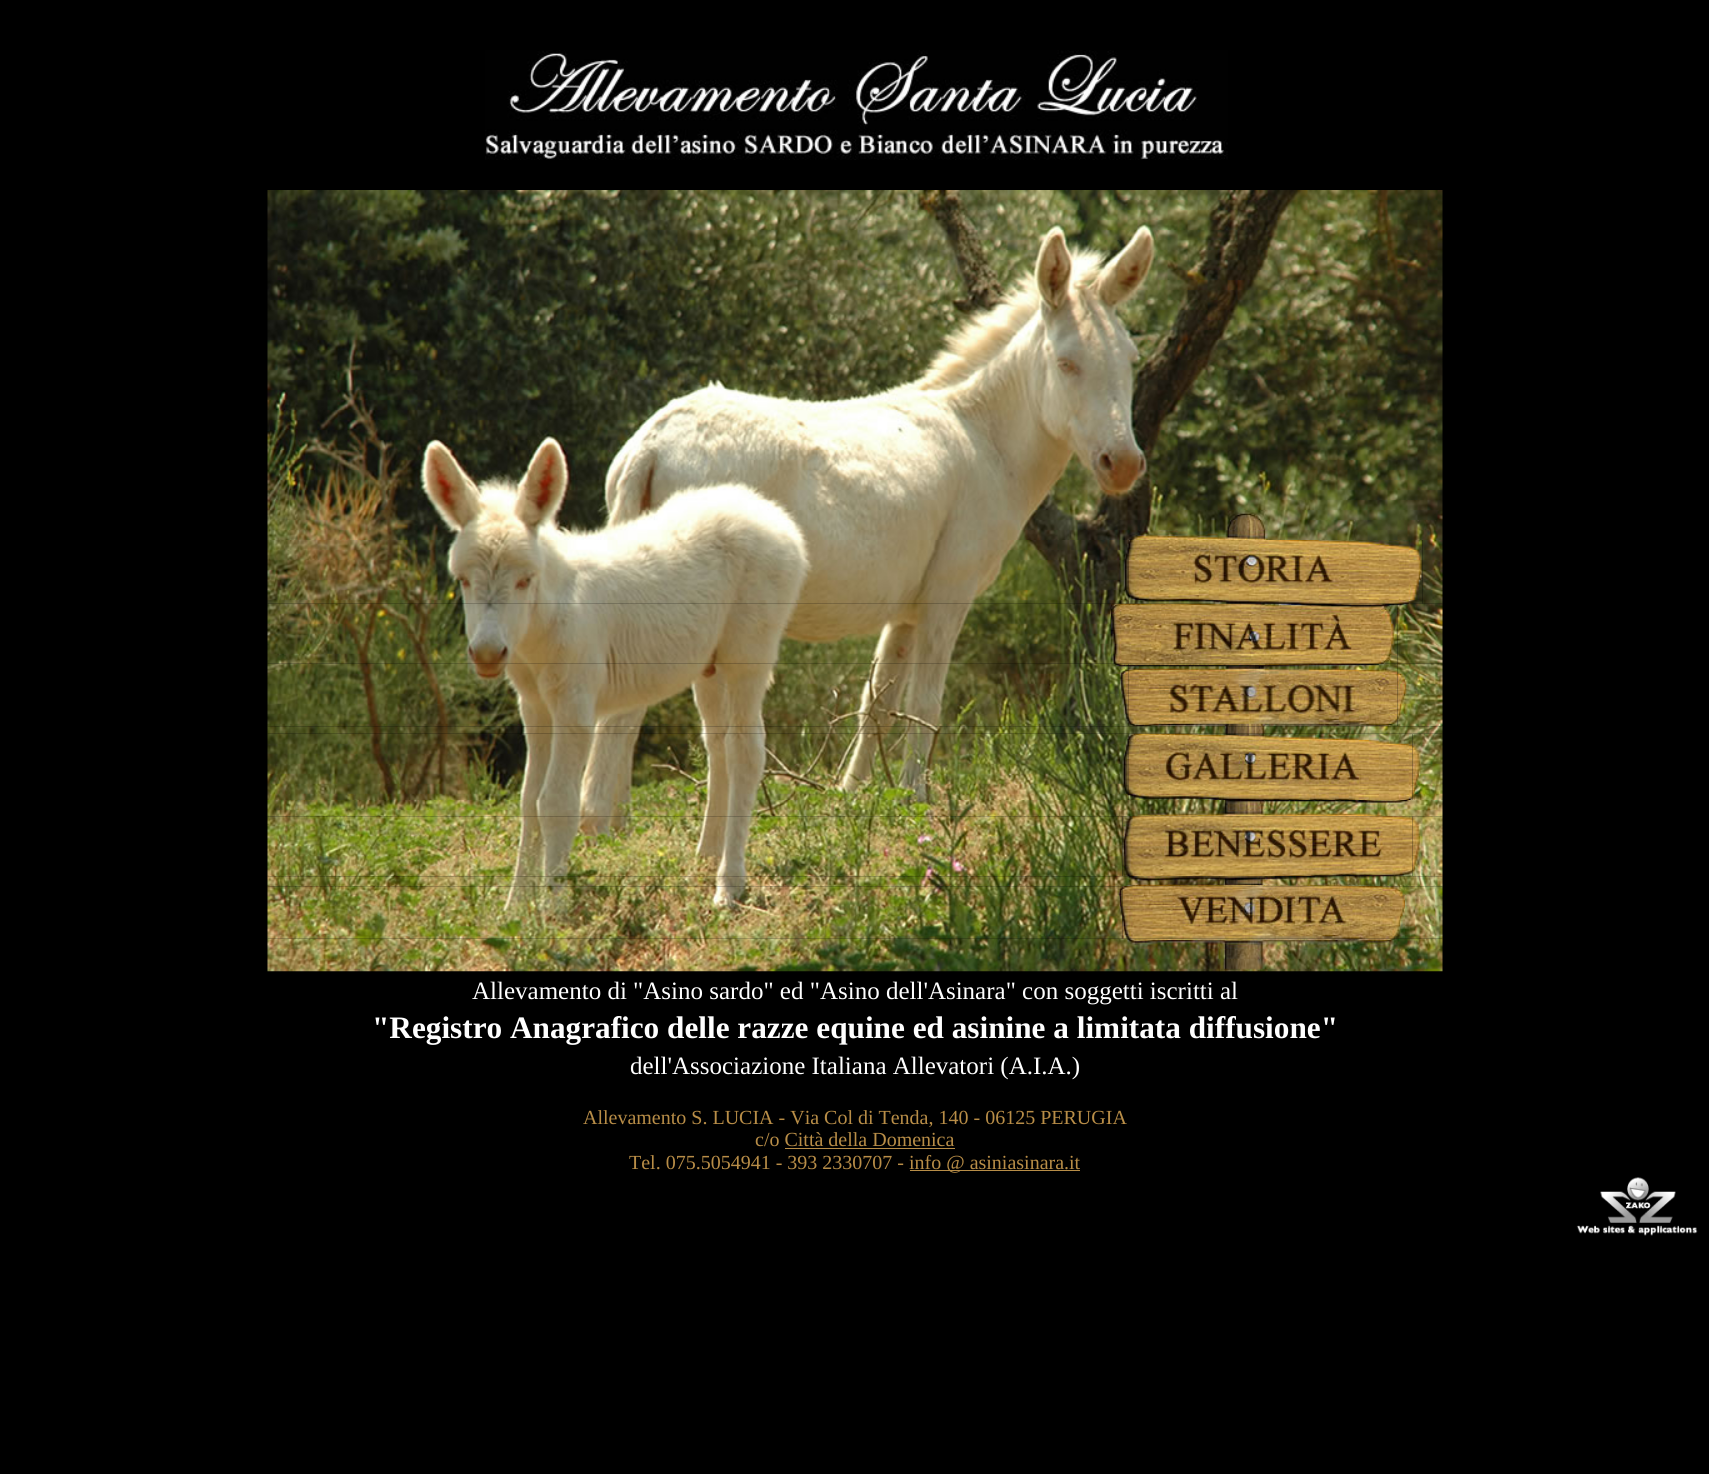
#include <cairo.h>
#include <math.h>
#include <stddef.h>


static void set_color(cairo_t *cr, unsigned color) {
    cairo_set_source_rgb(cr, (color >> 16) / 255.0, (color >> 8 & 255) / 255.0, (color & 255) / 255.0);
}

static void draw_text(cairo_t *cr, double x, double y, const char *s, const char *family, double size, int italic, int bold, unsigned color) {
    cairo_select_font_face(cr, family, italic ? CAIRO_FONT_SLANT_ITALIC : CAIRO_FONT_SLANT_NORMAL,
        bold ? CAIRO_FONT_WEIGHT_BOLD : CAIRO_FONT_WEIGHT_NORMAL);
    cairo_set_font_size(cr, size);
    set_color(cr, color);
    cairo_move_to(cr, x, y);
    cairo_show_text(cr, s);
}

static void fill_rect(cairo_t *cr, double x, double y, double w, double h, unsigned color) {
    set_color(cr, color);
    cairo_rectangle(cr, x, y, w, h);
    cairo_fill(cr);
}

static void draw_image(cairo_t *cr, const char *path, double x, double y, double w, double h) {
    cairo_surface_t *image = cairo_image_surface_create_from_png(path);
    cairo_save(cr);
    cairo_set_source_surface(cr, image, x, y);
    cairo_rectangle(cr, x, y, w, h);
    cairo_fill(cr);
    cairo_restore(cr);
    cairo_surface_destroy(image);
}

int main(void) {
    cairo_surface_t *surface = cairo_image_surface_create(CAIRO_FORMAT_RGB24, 1709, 1474);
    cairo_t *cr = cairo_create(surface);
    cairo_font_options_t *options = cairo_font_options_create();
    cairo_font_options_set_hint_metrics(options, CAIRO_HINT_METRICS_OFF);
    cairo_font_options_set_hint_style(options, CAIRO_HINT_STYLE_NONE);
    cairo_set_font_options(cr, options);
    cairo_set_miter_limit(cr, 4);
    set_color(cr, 0x000000);
    cairo_paint(cr);
    draw_image(cr, "assets/img1.png", 485, 50, 743, 110);
    draw_image(cr, "assets/img2.png", 267, 190, 1176, 350);
    draw_image(cr, "assets/img3.png", 267, 540, 862, 64);
    draw_image(cr, "assets/img4.png", 1128, 540, 295, 64);
    draw_image(cr, "assets/img5.png", 1422, 540, 21, 64);
    draw_image(cr, "assets/img6.png", 267, 603, 845, 61);
    draw_image(cr, "assets/img7.png", 1111, 603, 287, 61);
    draw_image(cr, "assets/img8.png", 1397, 603, 46, 61);
    draw_image(cr, "assets/img9.png", 267, 663, 862, 64);
    draw_image(cr, "assets/img10.png", 1128, 663, 270, 64);
    draw_image(cr, "assets/img11.png", 1397, 663, 46, 64);
    draw_image(cr, "assets/img12.png", 267, 726, 1176, 8);
    draw_image(cr, "assets/img13.png", 267, 733, 862, 67);
    draw_image(cr, "assets/img14.png", 1128, 733, 285, 67);
    draw_image(cr, "assets/img15.png", 1412, 733, 31, 67);
    draw_image(cr, "assets/img16.png", 267, 800, 1176, 17);
    draw_image(cr, "assets/img17.png", 267, 816, 856, 61);
    draw_image(cr, "assets/img18.png", 1122, 816, 291, 61);
    draw_image(cr, "assets/img19.png", 1412, 816, 31, 61);
    draw_image(cr, "assets/img20.png", 267, 876, 1176, 11);
    draw_image(cr, "assets/img21.png", 267, 886, 856, 53);
    draw_image(cr, "assets/img22.png", 1122, 886, 283, 53);
    draw_image(cr, "assets/img23.png", 1405, 886, 38, 53);
    draw_image(cr, "assets/img24.png", 267, 938, 1176, 34);
    draw_text(cr, 472, 999, "Allevamento di \"Asino sardo\" ed \"Asino dell'Asinara\" con soggetti iscritti al", "Liberation Serif", 25, 0, 0, 0xFFFFFF);
    draw_text(cr, 372, 1038, "\"Registro Anagrafico delle razze equine ed asinine a limitata diffusione\"", "Liberation Serif", 31.25, 0, 1, 0xFFFFFF);
    draw_text(cr, 630, 1074, "dell'Associazione Italiana Allevatori (A.I.A.)", "Liberation Serif", 25, 0, 0, 0xFFFFFF);
    draw_text(cr, 583, 1124, "Allevamento S. LUCIA - Via Col di Tenda, 140 - 06125 PERUGIA", "Liberation Serif", 20, 0, 0, 0xB88D47);
    draw_text(cr, 755, 1146, "c/o Città della Domenica", "Liberation Serif", 20, 0, 0, 0xB88D47);
    fill_rect(cr, 785, 1148, 170, 1, 0xB88D47);
    draw_text(cr, 629, 1169, "Tel. 075.5054941 - 393 2330707 -", "Liberation Serif", 20, 0, 0, 0xB88D47);
    fill_rect(cr, 910, 1170, 170, 1, 0xB88D47);
    draw_text(cr, 909, 1169, "info @ asiniasinara.it", "Liberation Serif", 20, 0, 0, 0xB88D47);
    draw_image(cr, "assets/img25.png", 1576, 1177, 122, 59);
    cairo_surface_write_to_png(surface, "output.png");
    cairo_font_options_destroy(options);
    cairo_destroy(cr);
    cairo_surface_destroy(surface);
    return 0;
}
